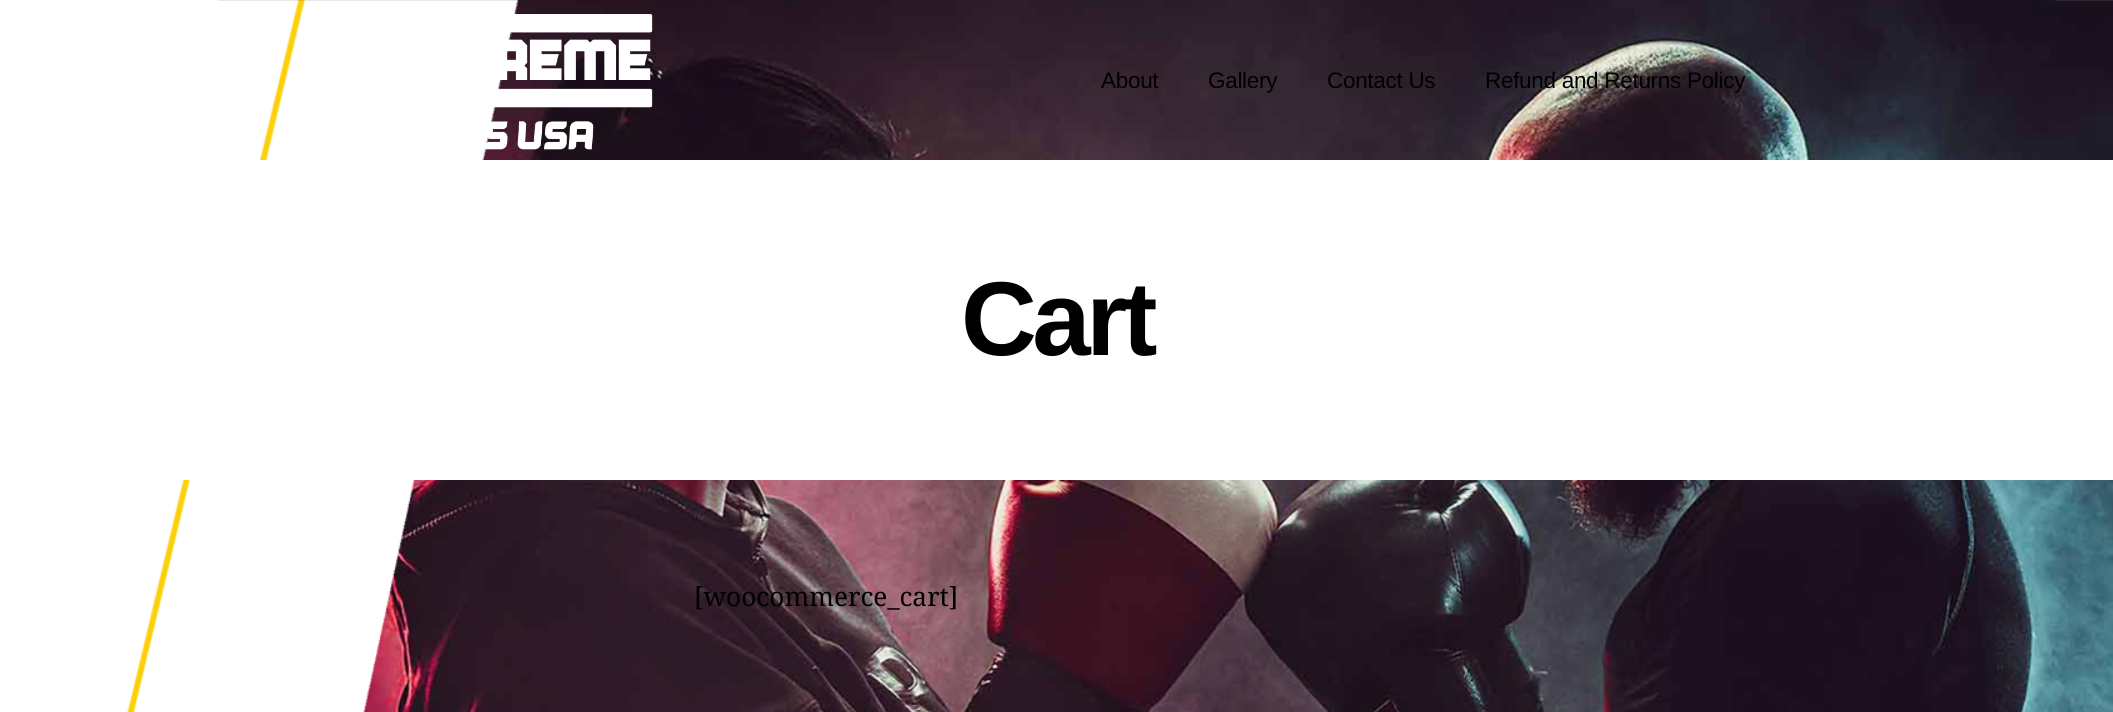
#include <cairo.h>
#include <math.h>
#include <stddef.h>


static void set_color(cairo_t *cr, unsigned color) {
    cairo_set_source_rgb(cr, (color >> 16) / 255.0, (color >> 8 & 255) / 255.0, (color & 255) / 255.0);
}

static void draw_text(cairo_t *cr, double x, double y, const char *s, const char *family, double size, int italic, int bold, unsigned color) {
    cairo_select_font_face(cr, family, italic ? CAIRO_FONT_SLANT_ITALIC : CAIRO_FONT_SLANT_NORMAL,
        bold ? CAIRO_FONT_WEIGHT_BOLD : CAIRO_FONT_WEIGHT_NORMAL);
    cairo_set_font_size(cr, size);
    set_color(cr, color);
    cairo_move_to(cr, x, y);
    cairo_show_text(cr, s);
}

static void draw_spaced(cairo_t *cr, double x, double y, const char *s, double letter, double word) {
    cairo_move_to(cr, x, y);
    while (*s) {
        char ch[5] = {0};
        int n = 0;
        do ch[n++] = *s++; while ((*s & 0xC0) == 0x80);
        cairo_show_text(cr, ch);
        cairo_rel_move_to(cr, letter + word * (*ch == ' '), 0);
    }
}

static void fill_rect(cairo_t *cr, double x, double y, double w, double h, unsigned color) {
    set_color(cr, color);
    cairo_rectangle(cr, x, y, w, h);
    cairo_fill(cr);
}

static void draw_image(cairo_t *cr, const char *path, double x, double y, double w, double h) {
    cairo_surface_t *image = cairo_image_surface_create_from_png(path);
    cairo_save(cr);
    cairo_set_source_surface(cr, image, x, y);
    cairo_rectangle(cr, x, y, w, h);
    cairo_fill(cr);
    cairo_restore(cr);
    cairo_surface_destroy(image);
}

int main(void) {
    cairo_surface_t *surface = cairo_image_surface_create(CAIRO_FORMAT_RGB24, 2113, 712);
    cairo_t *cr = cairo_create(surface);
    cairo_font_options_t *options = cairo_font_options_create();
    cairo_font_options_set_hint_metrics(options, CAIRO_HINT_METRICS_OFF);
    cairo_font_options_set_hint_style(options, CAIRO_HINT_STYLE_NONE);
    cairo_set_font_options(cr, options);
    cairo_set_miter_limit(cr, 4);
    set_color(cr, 0xFFFFFF);
    cairo_paint(cr);
    draw_image(cr, "assets/img1.png", 127, 0, 1986, 712);
    draw_image(cr, "assets/img2.png", 485, 14, 168, 136);
    cairo_select_font_face(cr, "Liberation Sans", CAIRO_FONT_SLANT_NORMAL, CAIRO_FONT_WEIGHT_NORMAL);
    cairo_set_font_size(cr, 22.5);
    set_color(cr, 0x000000);
    draw_spaced(cr, 1101, 88, "About", -0.3, 0);
    draw_spaced(cr, 1208, 88, "Gallery", -0.3, 0);
    draw_spaced(cr, 1327, 88, "Contact Us", -0.3, 0);
    draw_spaced(cr, 1485, 88, "Refund and Returns Policy", -0.3, 0);
    fill_rect(cr, 182, 160, 1931, 320, 0xFFFFFF);
    cairo_select_font_face(cr, "Liberation Sans", CAIRO_FONT_SLANT_NORMAL, CAIRO_FONT_WEIGHT_BOLD);
    cairo_set_font_size(cr, 105);
    set_color(cr, 0x000000);
    draw_spaced(cr, 961, 355, "Cart", -4.5, 0);
    draw_text(cr, 694, 606, "[woocommerce_cart]", "Noto Serif", 26.25, 0, 0, 0x000000);
    cairo_surface_write_to_png(surface, "output.png");
    cairo_font_options_destroy(options);
    cairo_destroy(cr);
    cairo_surface_destroy(surface);
    return 0;
}
